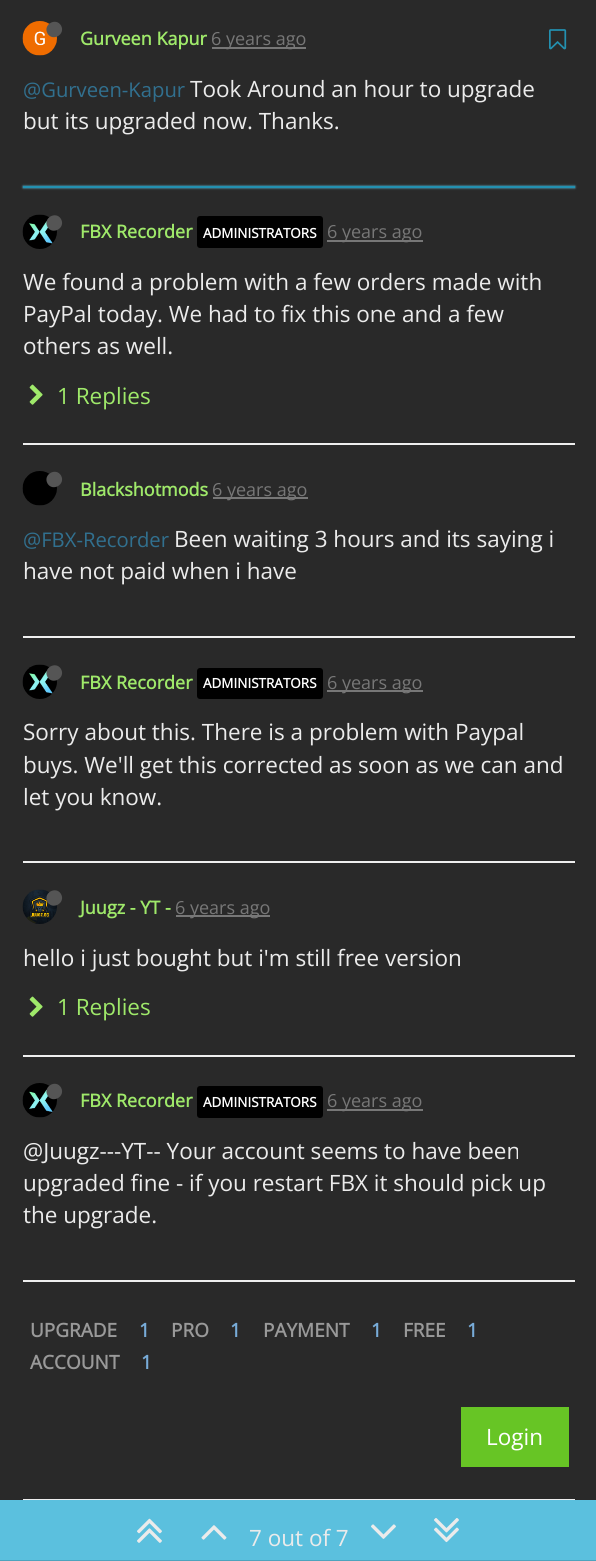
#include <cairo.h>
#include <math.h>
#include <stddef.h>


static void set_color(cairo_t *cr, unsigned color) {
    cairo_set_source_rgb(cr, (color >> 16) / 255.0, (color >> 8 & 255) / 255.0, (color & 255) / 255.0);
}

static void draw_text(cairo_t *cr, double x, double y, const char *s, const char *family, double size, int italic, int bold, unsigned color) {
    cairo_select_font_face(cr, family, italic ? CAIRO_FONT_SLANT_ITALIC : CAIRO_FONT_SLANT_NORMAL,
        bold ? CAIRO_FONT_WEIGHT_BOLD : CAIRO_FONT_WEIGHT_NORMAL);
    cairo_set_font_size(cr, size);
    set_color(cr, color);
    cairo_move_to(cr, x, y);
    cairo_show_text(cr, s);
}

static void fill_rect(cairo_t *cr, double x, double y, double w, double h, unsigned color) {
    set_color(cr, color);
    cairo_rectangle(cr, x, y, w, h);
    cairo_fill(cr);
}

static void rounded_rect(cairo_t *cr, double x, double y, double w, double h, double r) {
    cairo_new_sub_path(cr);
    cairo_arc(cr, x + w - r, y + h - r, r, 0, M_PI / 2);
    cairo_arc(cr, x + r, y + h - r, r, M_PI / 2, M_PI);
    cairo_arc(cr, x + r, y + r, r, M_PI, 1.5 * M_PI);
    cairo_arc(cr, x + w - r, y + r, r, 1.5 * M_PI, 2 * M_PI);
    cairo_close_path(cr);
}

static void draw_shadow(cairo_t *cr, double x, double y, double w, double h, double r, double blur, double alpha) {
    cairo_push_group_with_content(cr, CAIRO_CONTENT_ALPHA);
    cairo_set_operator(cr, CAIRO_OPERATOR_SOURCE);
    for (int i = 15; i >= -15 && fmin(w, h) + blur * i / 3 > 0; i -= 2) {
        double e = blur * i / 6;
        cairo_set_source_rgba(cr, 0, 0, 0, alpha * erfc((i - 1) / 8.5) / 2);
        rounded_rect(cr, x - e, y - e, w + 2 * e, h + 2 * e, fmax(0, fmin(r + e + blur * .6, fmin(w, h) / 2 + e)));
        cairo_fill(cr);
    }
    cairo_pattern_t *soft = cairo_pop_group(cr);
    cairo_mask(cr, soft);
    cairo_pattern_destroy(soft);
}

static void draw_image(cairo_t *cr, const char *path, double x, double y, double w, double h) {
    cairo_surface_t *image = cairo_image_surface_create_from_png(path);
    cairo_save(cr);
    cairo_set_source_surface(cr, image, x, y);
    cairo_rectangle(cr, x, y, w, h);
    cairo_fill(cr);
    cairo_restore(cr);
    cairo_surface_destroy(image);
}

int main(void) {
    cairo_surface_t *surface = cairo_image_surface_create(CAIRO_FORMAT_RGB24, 596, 1561);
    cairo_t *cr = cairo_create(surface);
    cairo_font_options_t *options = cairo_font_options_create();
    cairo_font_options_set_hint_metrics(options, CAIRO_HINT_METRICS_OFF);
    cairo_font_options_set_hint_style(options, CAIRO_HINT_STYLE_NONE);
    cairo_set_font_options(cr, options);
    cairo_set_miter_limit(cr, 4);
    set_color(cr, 0x292929);
    cairo_paint(cr);
    draw_image(cr, "assets/img1.png", 22, 21, 35, 35);
    set_color(cr, 0x555555);
    cairo_new_path(cr);
    cairo_move_to(cr, 61, 25.5);
    cairo_curve_to(cr, 66, 34.5, 52.5, 42, 47.5, 33.5);
    cairo_curve_to(cr, 42.5, 24.5, 56, 17, 61, 25.5);
    cairo_close_path(cr);
    cairo_fill(cr);
    draw_text(cr, 80, 45, "Gurveen Kapur", "Open Sans", 18, 0, 1, 0x9FE96A);
    fill_rect(cr, 212, 47, 94, 2, 0x777777);
    draw_text(cr, 211, 45, "6 years ago", "Open Sans", 18, 0, 0, 0x777777);
    draw_image(cr, "assets/img2.png", 549, 29, 18, 21);
    draw_text(cr, 23, 97, "@Gurveen-Kapur", "Open Sans", 20.25, 0, 0, 0x31708F);
    draw_text(cr, 190, 97, "Took Around an hour to upgrade", "Open Sans", 22.5, 0, 0, 0xEBEBEB);
    draw_text(cr, 23, 129, "but its upgraded now. Thanks.", "Open Sans", 22.5, 0, 0, 0xEBEBEB);
    set_color(cr, 0x5BC0DE);
    draw_shadow(cr, 23, 186, 552, 2, 0, 1, 1);
    fill_rect(cr, 23, 186, 552, 2, 0x2390B0);
    draw_image(cr, "assets/img3.png", 22, 214, 35, 35);
    set_color(cr, 0x555555);
    cairo_new_path(cr);
    cairo_move_to(cr, 61, 219);
    cairo_curve_to(cr, 66, 228, 52.5, 235.5, 47.5, 227);
    cairo_curve_to(cr, 42.5, 218, 56, 210.5, 61, 219);
    cairo_close_path(cr);
    cairo_fill(cr);
    draw_text(cr, 80, 238, "FBX Recorder", "Open Sans", 18, 0, 1, 0x9FE96A);
    set_color(cr, 0x000000);
    rounded_rect(cr, 197, 216, 126, 32, 3);
    cairo_fill(cr);
    draw_text(cr, 203, 238, "ADMINISTRATORS", "Open Sans", 13.5, 0, 1, 0xFFFFFF);
    fill_rect(cr, 327, 240, 96, 2, 0x777777);
    draw_text(cr, 327, 238, "6 years ago", "Open Sans", 18, 0, 0, 0x777777);
    draw_text(cr, 23, 290, "We found a problem with a few orders made with", "Open Sans", 22.5, 0, 0, 0xEBEBEB);
    draw_text(cr, 23, 322, "PayPal today. We had to fix this one and a few", "Open Sans", 22.5, 0, 0, 0xEBEBEB);
    draw_text(cr, 23, 354, "others as well.", "Open Sans", 22.5, 0, 0, 0xEBEBEB);
    draw_image(cr, "assets/img4.png", 29, 384, 14, 21);
    draw_text(cr, 57, 404, "1 Replies", "Open Sans", 22.5, 0, 0, 0x9FE96A);
    fill_rect(cr, 23, 443, 552, 2, 0xEEEEEE);
    draw_image(cr, "assets/img5.png", 22, 471, 35, 35);
    set_color(cr, 0x555555);
    cairo_new_path(cr);
    cairo_move_to(cr, 61, 475.5);
    cairo_curve_to(cr, 66, 484.5, 52.5, 492, 47.5, 483.5);
    cairo_curve_to(cr, 42.5, 474.5, 56, 467, 61, 475.5);
    cairo_close_path(cr);
    cairo_fill(cr);
    draw_text(cr, 80, 496, "Blackshotmods", "Open Sans", 18, 0, 1, 0x9FE96A);
    fill_rect(cr, 213, 497, 95, 2, 0x777777);
    draw_text(cr, 212, 496, "6 years ago", "Open Sans", 18, 0, 0, 0x777777);
    draw_text(cr, 23, 547, "@FBX-Recorder", "Open Sans", 20.25, 0, 0, 0x31708F);
    draw_text(cr, 174, 547, "Been waiting 3 hours and its saying i", "Open Sans", 22.5, 0, 0, 0xEBEBEB);
    draw_text(cr, 23, 579, "have not paid when i have", "Open Sans", 22.5, 0, 0, 0xEBEBEB);
    fill_rect(cr, 23, 636, 552, 2, 0xEEEEEE);
    draw_image(cr, "assets/img6.png", 22, 664, 35, 35);
    set_color(cr, 0x555555);
    cairo_new_path(cr);
    cairo_move_to(cr, 61, 669);
    cairo_curve_to(cr, 66, 678, 52.5, 685.5, 47.5, 677);
    cairo_curve_to(cr, 42.5, 668, 56, 660.5, 61, 669);
    cairo_close_path(cr);
    cairo_fill(cr);
    draw_text(cr, 80, 689, "FBX Recorder", "Open Sans", 18, 0, 1, 0x9FE96A);
    set_color(cr, 0x000000);
    rounded_rect(cr, 197, 668, 126, 31, 3);
    cairo_fill(cr);
    draw_text(cr, 203, 688, "ADMINISTRATORS", "Open Sans", 13.5, 0, 1, 0xFFFFFF);
    fill_rect(cr, 327, 690, 96, 2, 0x777777);
    draw_text(cr, 327, 689, "6 years ago", "Open Sans", 18, 0, 0, 0x777777);
    draw_text(cr, 23, 740, "Sorry about this. There is a problem with Paypal", "Open Sans", 22.5, 0, 0, 0xEBEBEB);
    draw_text(cr, 23, 773, "buys. We'll get this corrected as soon as we can and", "Open Sans", 22.5, 0, 0, 0xEBEBEB);
    draw_text(cr, 23, 805, "let you know.", "Open Sans", 22.5, 0, 0, 0xEBEBEB);
    fill_rect(cr, 23, 861, 552, 2, 0xEEEEEE);
    draw_image(cr, "assets/img7.png", 22, 889, 35, 35);
    set_color(cr, 0x555555);
    cairo_new_path(cr);
    cairo_move_to(cr, 61, 894);
    cairo_curve_to(cr, 66, 903, 52.5, 910.5, 47.5, 902);
    cairo_curve_to(cr, 42.5, 893, 56, 885.5, 61, 894);
    cairo_close_path(cr);
    cairo_fill(cr);
    draw_text(cr, 80, 914, "Juugz - YT -", "Open Sans", 18, 0, 1, 0x9FE96A);
    fill_rect(cr, 176, 915, 94, 2, 0x777777);
    draw_text(cr, 175, 914, "6 years ago", "Open Sans", 18, 0, 0, 0x777777);
    draw_text(cr, 23, 966, "hello i just bought but i'm still free version", "Open Sans", 22.5, 0, 0, 0xEBEBEB);
    draw_image(cr, "assets/img4.png", 29, 996, 14, 21);
    draw_text(cr, 57, 1015, "1 Replies", "Open Sans", 22.5, 0, 0, 0x9FE96A);
    fill_rect(cr, 23, 1055, 552, 2, 0xEEEEEE);
    draw_image(cr, "assets/img8.png", 22, 1083, 35, 35);
    set_color(cr, 0x555555);
    cairo_new_path(cr);
    cairo_move_to(cr, 61, 1087.5);
    cairo_curve_to(cr, 66, 1096.5, 52.5, 1104, 47.5, 1095.5);
    cairo_curve_to(cr, 42.5, 1086.5, 56, 1079, 61, 1087.5);
    cairo_close_path(cr);
    cairo_fill(cr);
    draw_text(cr, 80, 1107, "FBX Recorder", "Open Sans", 18, 0, 1, 0x9FE96A);
    set_color(cr, 0x000000);
    rounded_rect(cr, 197, 1086, 126, 32, 3);
    cairo_fill(cr);
    draw_text(cr, 203, 1107, "ADMINISTRATORS", "Open Sans", 13.5, 0, 1, 0xFFFFFF);
    fill_rect(cr, 327, 1109, 96, 2, 0x777777);
    draw_text(cr, 327, 1107, "6 years ago", "Open Sans", 18, 0, 0, 0x777777);
    draw_text(cr, 23, 1159, "@Juugz---YT-- Your account seems to have been", "Open Sans", 22.5, 0, 0, 0xEBEBEB);
    draw_text(cr, 23, 1191, "upgraded fine - if you restart FBX it should pick up", "Open Sans", 22.5, 0, 0, 0xEBEBEB);
    draw_text(cr, 23, 1223, "the upgrade.", "Open Sans", 22.5, 0, 0, 0xEBEBEB);
    fill_rect(cr, 23, 1280, 552, 2, 0xEEEEEE);
    draw_text(cr, 30, 1337, "UPGRADE", "Open Sans", 19, 0, 1, 0x999999);
    draw_text(cr, 139, 1337, "1", "Open Sans", 19, 0, 1, 0x78ACD9);
    draw_text(cr, 171, 1337, "PRO", "Open Sans", 19, 0, 1, 0x999999);
    draw_text(cr, 230, 1337, "1", "Open Sans", 19, 0, 1, 0x78ACD9);
    draw_text(cr, 263, 1337, "PAYMENT", "Open Sans", 19, 0, 1, 0x999999);
    draw_text(cr, 371, 1337, "1", "Open Sans", 19, 0, 1, 0x78ACD9);
    draw_text(cr, 403, 1337, "FREE", "Open Sans", 19, 0, 1, 0x999999);
    draw_text(cr, 467, 1337, "1", "Open Sans", 19, 0, 1, 0x78ACD9);
    draw_text(cr, 30, 1369, "ACCOUNT", "Open Sans", 19, 0, 1, 0x999999);
    draw_text(cr, 141, 1369, "1", "Open Sans", 19, 0, 1, 0x78ACD9);
    fill_rect(cr, 461, 1407, 108, 60, 0x67C525);
    draw_text(cr, 486, 1445, "Login", "Open Sans", 22.5, 0, 0, 0xFFFFFF);
    fill_rect(cr, 23, 1499, 552, 1, 0xEEEEEE);
    fill_rect(cr, 0, 1500, 596, 60, 0x5BC0DE);
    fill_rect(cr, 0, 1560, 596, 1, 0x4DA3BD);
    draw_image(cr, "assets/img9.png", 137, 1518, 25, 25);
    draw_image(cr, "assets/img10.png", 201, 1525, 26, 15);
    draw_text(cr, 249, 1546, "7 out of 7", "Open Sans", 22.5, 0, 0, 0xEBEBEB);
    draw_image(cr, "assets/img11.png", 371, 1524, 25, 15);
    draw_image(cr, "assets/img12.png", 434, 1518, 25, 25);
    cairo_surface_write_to_png(surface, "output.png");
    cairo_font_options_destroy(options);
    cairo_destroy(cr);
    cairo_surface_destroy(surface);
    return 0;
}
